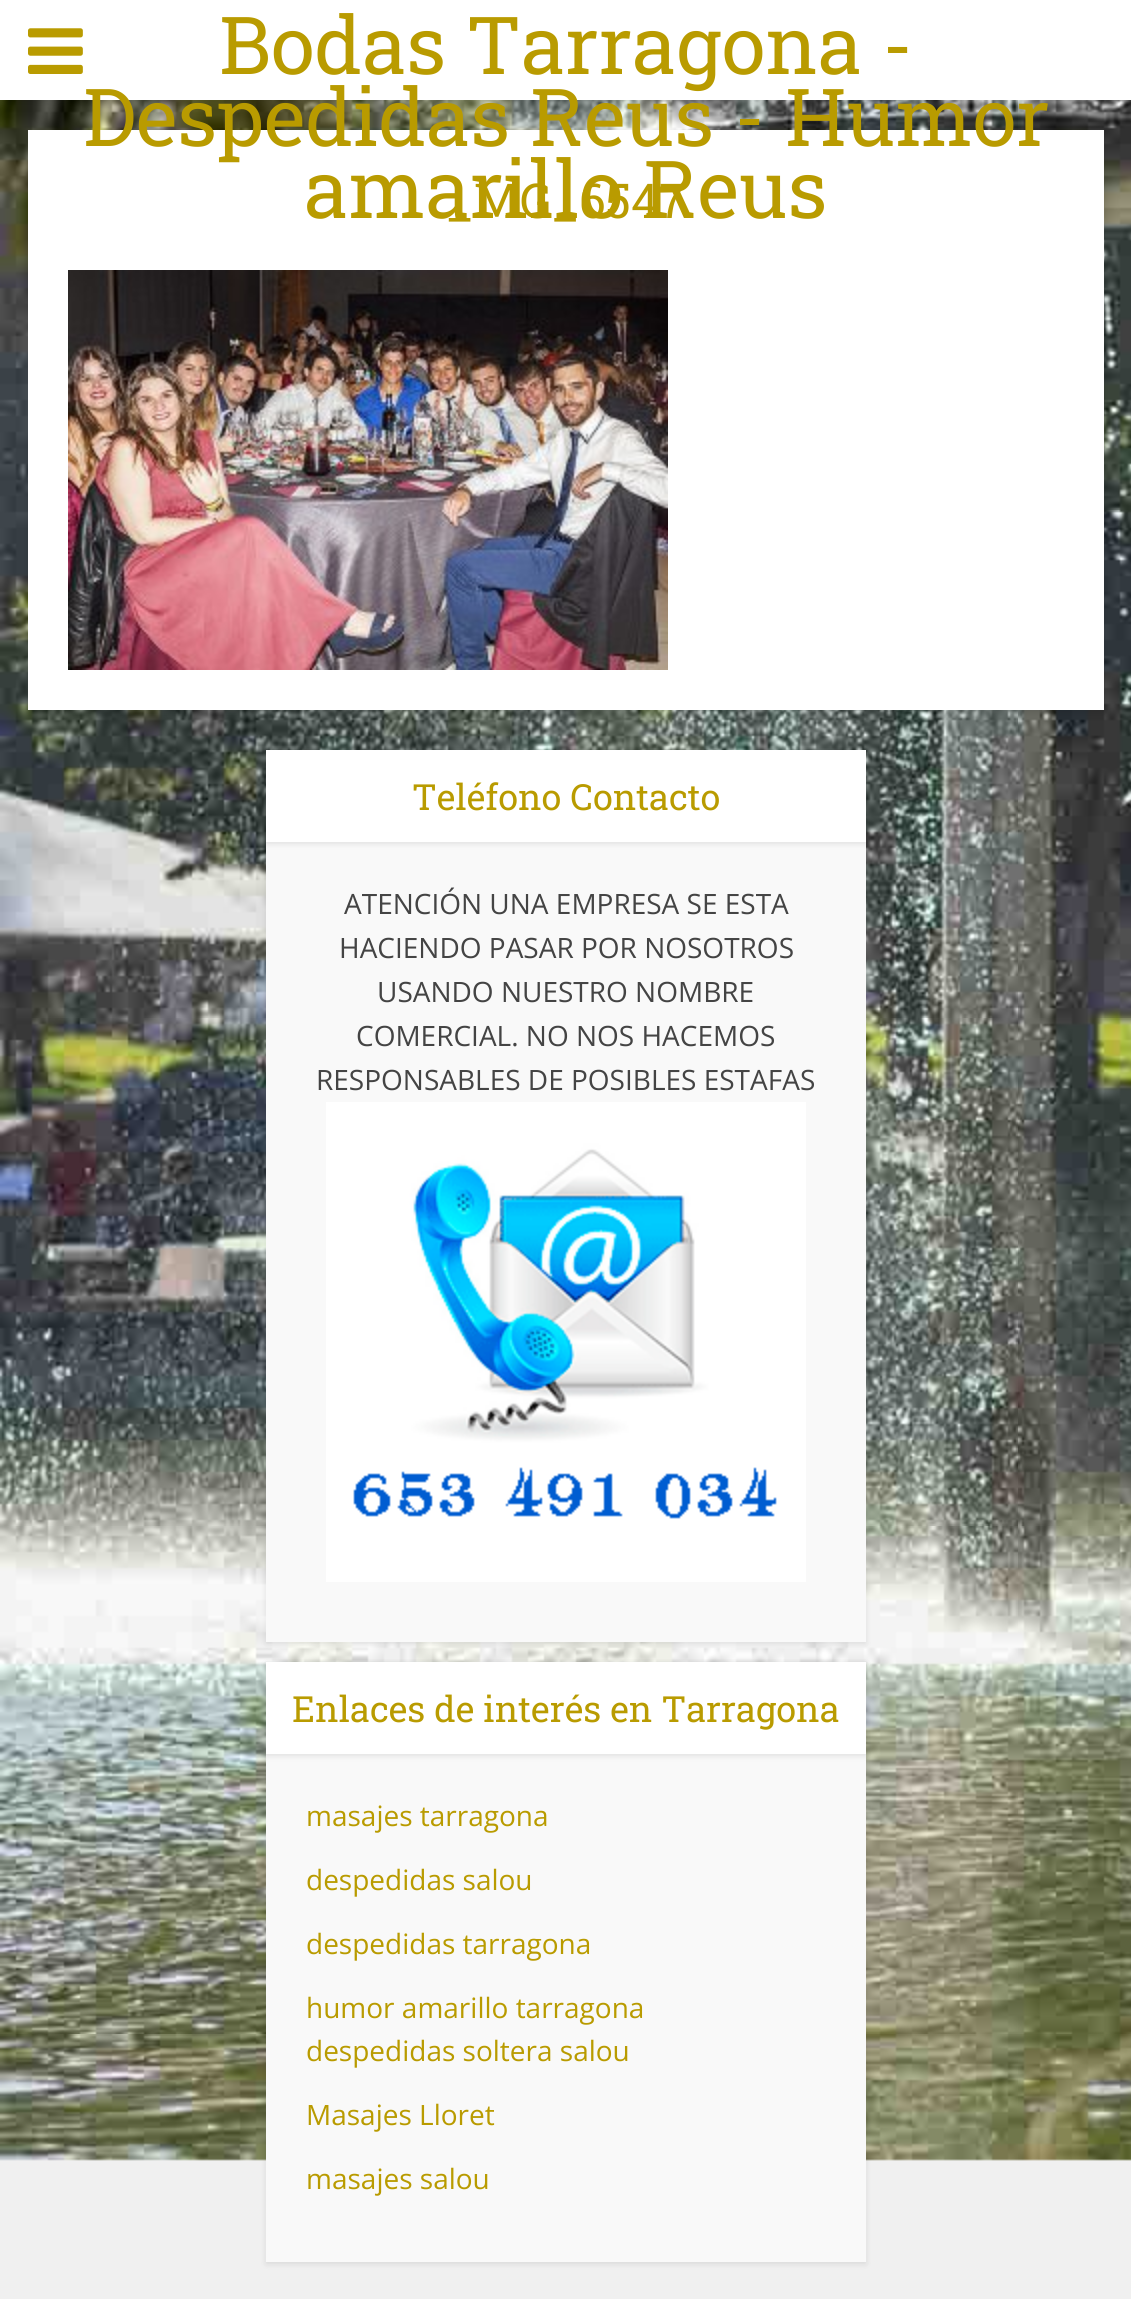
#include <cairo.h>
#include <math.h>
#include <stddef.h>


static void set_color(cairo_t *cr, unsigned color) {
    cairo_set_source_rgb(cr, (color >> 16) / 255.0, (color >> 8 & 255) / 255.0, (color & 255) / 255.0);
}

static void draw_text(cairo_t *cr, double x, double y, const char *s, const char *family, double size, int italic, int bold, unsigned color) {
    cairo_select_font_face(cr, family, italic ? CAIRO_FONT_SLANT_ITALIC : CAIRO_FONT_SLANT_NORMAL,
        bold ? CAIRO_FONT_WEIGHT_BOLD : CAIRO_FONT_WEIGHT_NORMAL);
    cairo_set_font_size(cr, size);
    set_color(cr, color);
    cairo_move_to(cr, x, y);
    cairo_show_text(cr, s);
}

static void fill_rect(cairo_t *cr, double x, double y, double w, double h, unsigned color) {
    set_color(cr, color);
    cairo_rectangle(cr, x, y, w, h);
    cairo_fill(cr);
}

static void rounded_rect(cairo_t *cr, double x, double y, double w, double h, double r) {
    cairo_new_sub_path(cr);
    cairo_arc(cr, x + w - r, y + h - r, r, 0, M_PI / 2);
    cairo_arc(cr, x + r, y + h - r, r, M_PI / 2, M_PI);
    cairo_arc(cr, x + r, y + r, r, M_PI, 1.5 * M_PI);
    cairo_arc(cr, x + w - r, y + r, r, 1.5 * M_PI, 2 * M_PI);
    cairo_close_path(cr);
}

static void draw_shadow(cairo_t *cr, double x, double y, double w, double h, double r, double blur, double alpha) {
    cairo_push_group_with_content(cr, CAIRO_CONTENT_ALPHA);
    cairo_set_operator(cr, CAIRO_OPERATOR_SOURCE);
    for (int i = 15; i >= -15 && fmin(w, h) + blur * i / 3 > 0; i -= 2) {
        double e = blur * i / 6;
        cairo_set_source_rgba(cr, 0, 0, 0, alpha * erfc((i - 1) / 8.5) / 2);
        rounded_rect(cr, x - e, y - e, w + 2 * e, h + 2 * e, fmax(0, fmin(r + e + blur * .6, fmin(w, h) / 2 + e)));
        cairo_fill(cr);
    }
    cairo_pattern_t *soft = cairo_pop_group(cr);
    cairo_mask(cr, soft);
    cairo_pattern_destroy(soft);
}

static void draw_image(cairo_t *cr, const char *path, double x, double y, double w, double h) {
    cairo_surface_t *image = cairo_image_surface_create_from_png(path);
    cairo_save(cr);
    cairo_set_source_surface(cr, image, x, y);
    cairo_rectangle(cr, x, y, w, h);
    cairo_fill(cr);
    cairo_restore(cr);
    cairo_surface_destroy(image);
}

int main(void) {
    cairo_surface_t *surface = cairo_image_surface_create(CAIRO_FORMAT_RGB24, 1131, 2299);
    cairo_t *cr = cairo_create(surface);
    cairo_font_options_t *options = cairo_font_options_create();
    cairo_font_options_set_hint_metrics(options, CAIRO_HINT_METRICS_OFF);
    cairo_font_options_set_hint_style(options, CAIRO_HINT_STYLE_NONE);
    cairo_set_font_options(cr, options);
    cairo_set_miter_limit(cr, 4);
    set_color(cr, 0xF0F0F0);
    cairo_paint(cr);
    draw_image(cr, "assets/img1.png", 0, 100, 1131, 2061);
    set_color(cr, 0x000000);
    draw_shadow(cr, 0, 2, 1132, 100, 0, 3, 0.1);
    fill_rect(cr, 0, 0, 1131, 100, 0xFFFFFF);
    draw_image(cr, "assets/img2.png", 28, 28, 55, 46);
    draw_text(cr, 219, 74, "Bodas Tarragona -", "Roboto Slab", 80, 0, 0, 0xB99B00);
    set_color(cr, 0x000000);
    draw_shadow(cr, 28, 132, 1076, 580, 0, 3, 0.1);
    fill_rect(cr, 28, 130, 1076, 580, 0xFFFFFF);
    draw_text(cr, 83, 146, "Despedidas Reus - Humor", "Roboto Slab", 80, 0, 0, 0xB99B00);
    draw_text(cr, 446, 218, "_MG_6547", "Roboto Slab", 48, 0, 0, 0xB99B00);
    draw_text(cr, 304, 218, "amarillo Reus", "Roboto Slab", 80, 0, 0, 0xB99B00);
    draw_image(cr, "assets/img3.png", 68, 270, 600, 400);
    set_color(cr, 0x000000);
    draw_shadow(cr, 266, 752, 600, 892, 0, 3, 0.1);
    fill_rect(cr, 266, 842, 600, 800, 0xF9F9F9);
    set_color(cr, 0x000000);
    draw_shadow(cr, 266, 752, 600, 92, 0, 3, 0.1);
    fill_rect(cr, 266, 750, 600, 92, 0xFFFFFF);
    draw_text(cr, 412, 810, "Teléfono Contacto", "Roboto Slab", 36, 0, 0, 0xB99B00);
    draw_text(cr, 344, 914, "ATENCIÓN UNA EMPRESA SE ESTA", "Open Sans", 28, 0, 0, 0x444444);
    draw_text(cr, 339, 958, "HACIENDO PASAR POR NOSOTROS", "Open Sans", 28, 0, 0, 0x444444);
    draw_text(cr, 377, 1002, "USANDO NUESTRO NOMBRE", "Open Sans", 28, 0, 0, 0x444444);
    draw_text(cr, 356, 1046, "COMERCIAL. NO NOS HACEMOS", "Open Sans", 28, 0, 0, 0x444444);
    draw_text(cr, 316, 1090, "RESPONSABLES DE POSIBLES ESTAFAS", "Open Sans", 28, 0, 0, 0x444444);
    draw_image(cr, "assets/img4.png", 326, 1102, 480, 480);
    set_color(cr, 0x000000);
    draw_shadow(cr, 266, 1664, 600, 600, 0, 3, 0.1);
    fill_rect(cr, 266, 1754, 600, 508, 0xF9F9F9);
    set_color(cr, 0x000000);
    draw_shadow(cr, 266, 1664, 600, 92, 0, 3, 0.1);
    fill_rect(cr, 266, 1662, 600, 92, 0xFFFFFF);
    draw_text(cr, 292, 1722, "Enlaces de interés en Tarragona", "Roboto Slab", 36, 0, 0, 0xB99B00);
    draw_text(cr, 306, 1826, "masajes tarragona", "Open Sans", 28, 0, 0, 0xB99B00);
    draw_text(cr, 306, 1890, "despedidas salou", "Open Sans", 28, 0, 0, 0xB99B00);
    draw_text(cr, 306, 1954, "despedidas tarragona", "Open Sans", 28, 0, 0, 0xB99B00);
    draw_text(cr, 306, 2018, "humor amarillo tarragona", "Open Sans", 28, 0, 0, 0xB99B00);
    draw_text(cr, 306, 2061, "despedidas soltera salou", "Open Sans", 28, 0, 0, 0xB99B00);
    draw_text(cr, 306, 2125, "Masajes Lloret", "Open Sans", 28, 0, 0, 0xB99B00);
    draw_text(cr, 306, 2189, "masajes salou", "Open Sans", 28, 0, 0, 0xB99B00);
    cairo_surface_write_to_png(surface, "output.png");
    cairo_font_options_destroy(options);
    cairo_destroy(cr);
    cairo_surface_destroy(surface);
    return 0;
}
